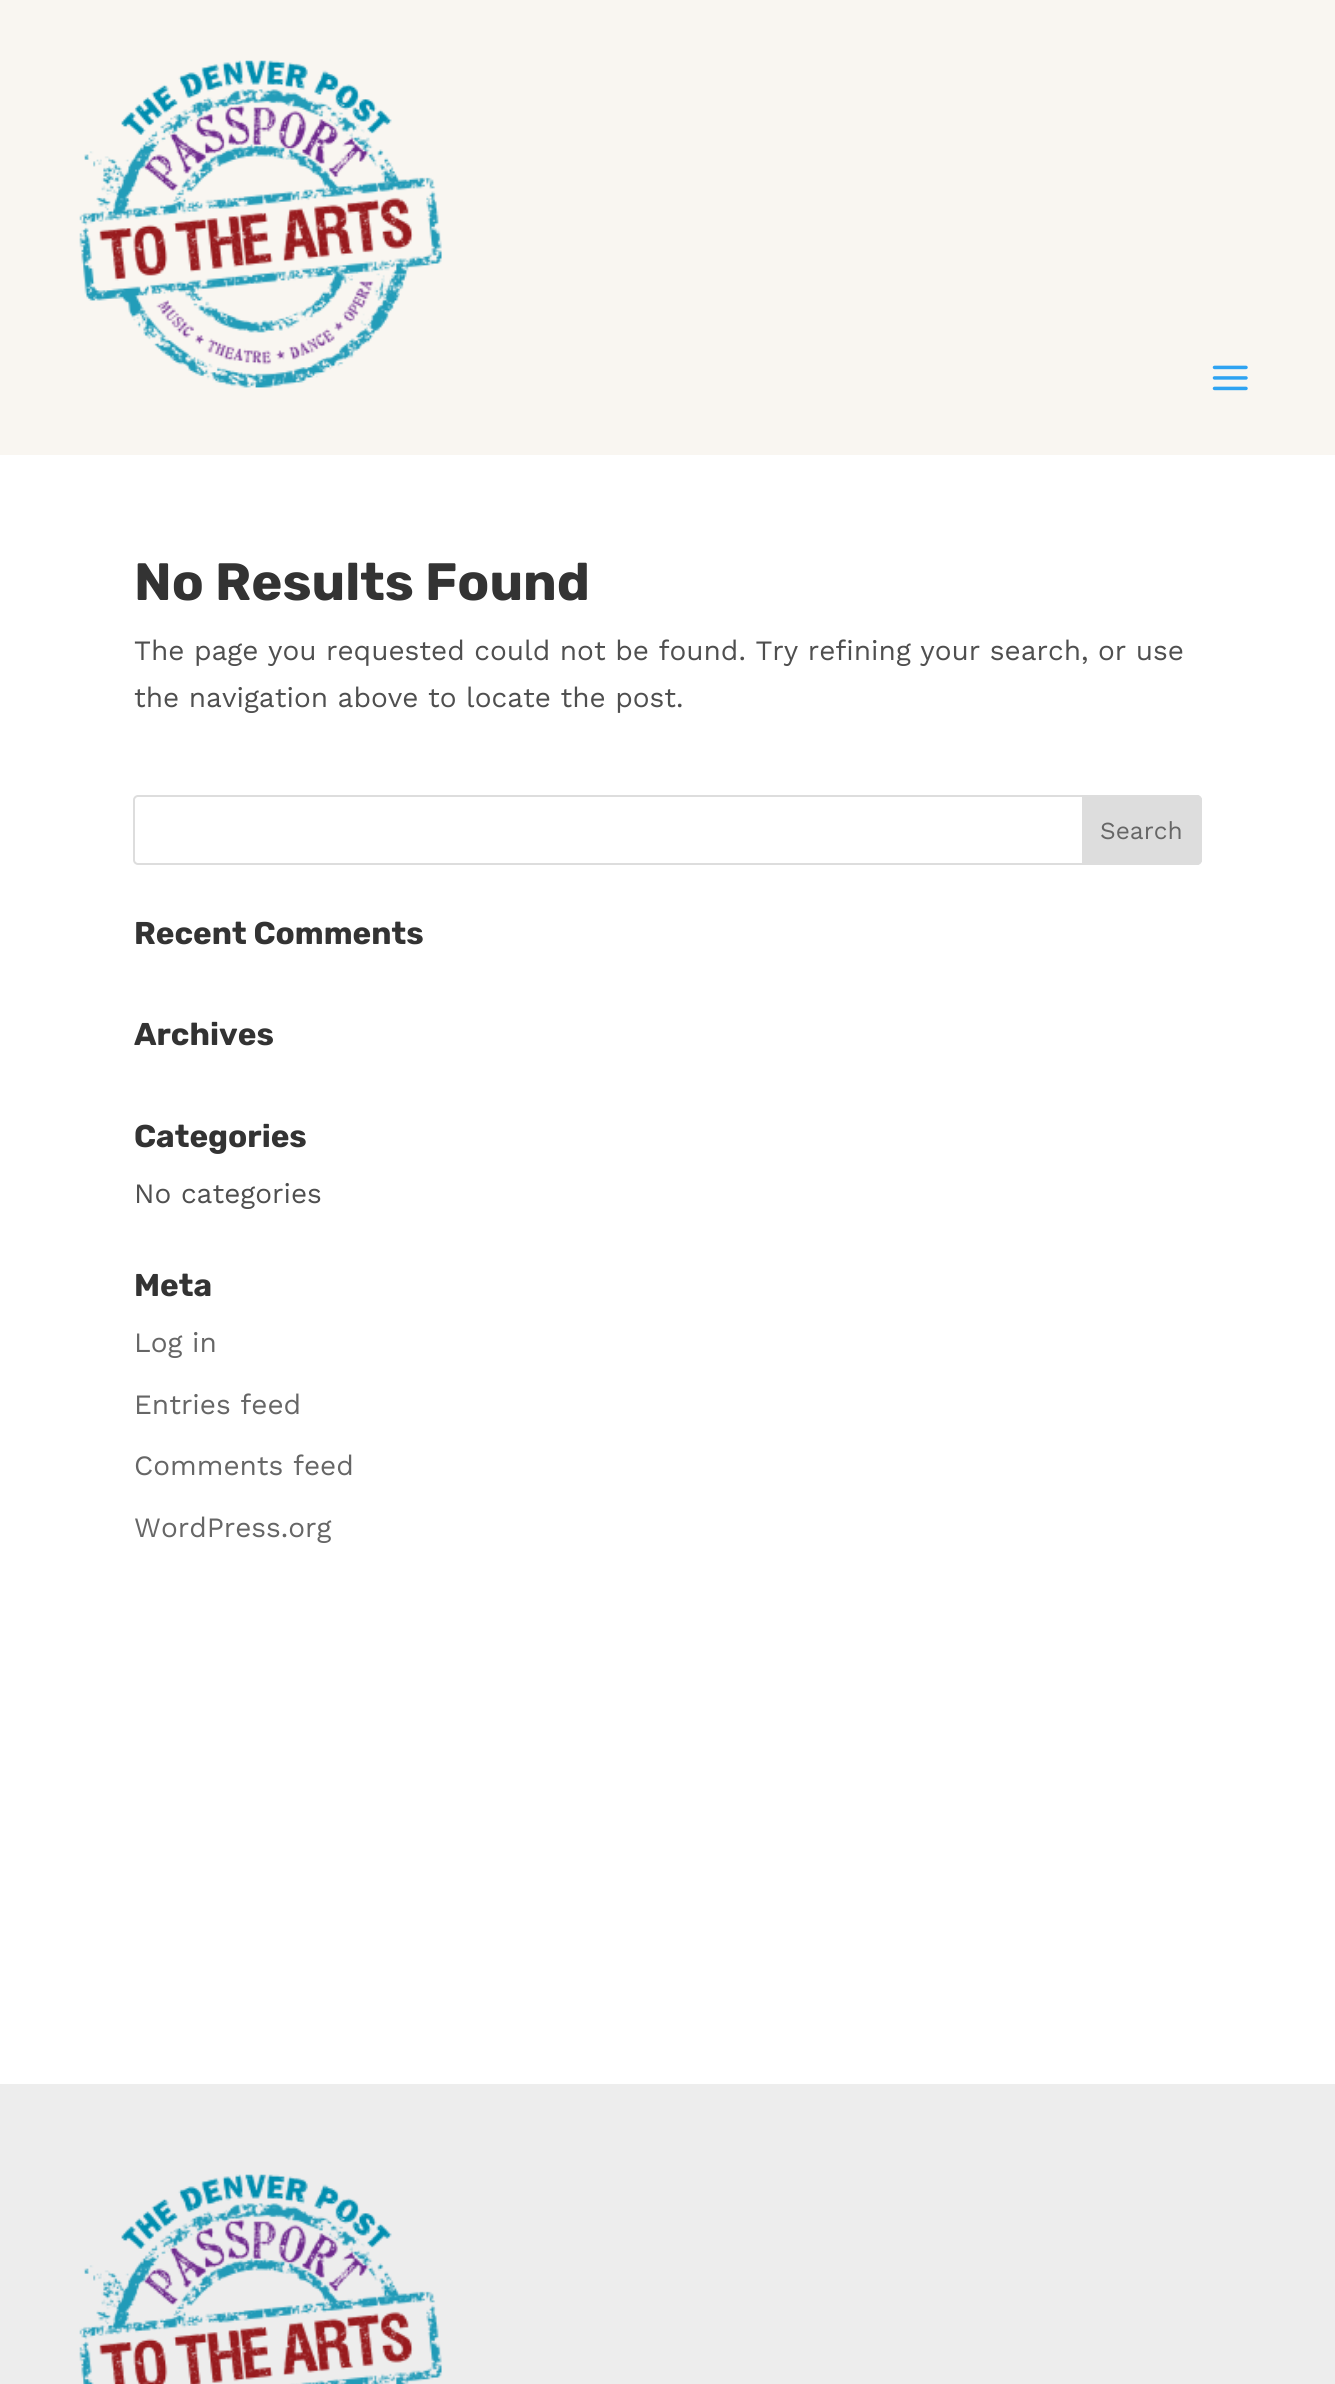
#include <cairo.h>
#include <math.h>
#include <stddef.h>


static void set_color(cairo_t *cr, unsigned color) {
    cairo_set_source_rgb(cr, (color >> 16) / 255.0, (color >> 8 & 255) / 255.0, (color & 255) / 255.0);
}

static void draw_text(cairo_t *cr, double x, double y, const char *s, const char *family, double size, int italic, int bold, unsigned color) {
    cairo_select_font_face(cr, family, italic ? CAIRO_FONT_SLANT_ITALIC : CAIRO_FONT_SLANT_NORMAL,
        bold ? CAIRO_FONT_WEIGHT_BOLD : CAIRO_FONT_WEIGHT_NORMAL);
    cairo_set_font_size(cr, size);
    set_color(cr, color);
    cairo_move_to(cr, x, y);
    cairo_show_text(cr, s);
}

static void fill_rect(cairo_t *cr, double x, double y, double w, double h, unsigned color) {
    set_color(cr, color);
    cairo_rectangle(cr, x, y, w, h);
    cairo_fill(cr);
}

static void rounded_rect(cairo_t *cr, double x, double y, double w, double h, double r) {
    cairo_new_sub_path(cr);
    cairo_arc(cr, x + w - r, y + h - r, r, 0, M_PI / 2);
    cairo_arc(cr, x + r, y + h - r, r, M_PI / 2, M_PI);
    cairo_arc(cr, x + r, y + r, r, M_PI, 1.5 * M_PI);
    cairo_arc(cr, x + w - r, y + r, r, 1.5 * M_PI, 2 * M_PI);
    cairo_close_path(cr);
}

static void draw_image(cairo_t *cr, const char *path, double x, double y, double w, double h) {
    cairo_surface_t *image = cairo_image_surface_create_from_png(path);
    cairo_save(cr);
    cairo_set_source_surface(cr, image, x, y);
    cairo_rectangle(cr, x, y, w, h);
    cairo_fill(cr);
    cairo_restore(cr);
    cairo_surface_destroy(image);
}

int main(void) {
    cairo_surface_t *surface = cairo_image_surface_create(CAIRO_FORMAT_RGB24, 1335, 2384);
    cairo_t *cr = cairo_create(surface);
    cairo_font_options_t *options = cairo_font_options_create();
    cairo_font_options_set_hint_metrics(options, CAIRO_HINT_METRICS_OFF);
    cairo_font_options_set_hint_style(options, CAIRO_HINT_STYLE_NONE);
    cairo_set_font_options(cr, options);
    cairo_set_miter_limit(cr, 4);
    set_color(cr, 0xFFFFFF);
    cairo_paint(cr);
    fill_rect(cr, 0, 0, 1335, 455, 0xF9F6F1);
    draw_image(cr, "assets/img1.png", 79, 60, 363, 328);
    draw_image(cr, "assets/img2.png", 1212, 365, 36, 26);
    draw_text(cr, 134, 600, "No Results Found", "Rubik", 52.5, 0, 1, 0x333333);
    draw_text(cr, 134, 660, "The page you requested could not be found. Try refining your search, or use", "Work Sans", 28, 0, 0, 0x4F4F4F);
    draw_text(cr, 134, 707, "the navigation above to locate the post.", "Work Sans", 28, 0, 0, 0x4F4F4F);
    rounded_rect(cr, 134, 796, 1067, 68, 4);
    set_color(cr, 0xDDDDDD);
    cairo_stroke(cr);
    cairo_new_path(cr);
    cairo_move_to(cr, 1083, 796);
    cairo_line_to(cr, 1197, 796);
    cairo_curve_to(cr, 1199, 796, 1201, 798, 1201, 800);
    cairo_line_to(cr, 1201, 860);
    cairo_curve_to(cr, 1201, 862, 1199, 864, 1197, 864);
    cairo_line_to(cr, 1083, 864);
    cairo_close_path(cr);
    cairo_fill_preserve(cr);
    cairo_stroke(cr);
    draw_text(cr, 1100, 839, "Search", "Work Sans", 24.5, 0, 0, 0x666666);
    draw_text(cr, 134, 944, "Recent Comments", "Rubik", 31.5, 0, 1, 0x333333);
    draw_text(cr, 134, 1045, "Archives", "Rubik", 31.5, 0, 1, 0x333333);
    draw_text(cr, 134, 1147, "Categories", "Rubik", 31.5, 0, 1, 0x333333);
    draw_text(cr, 134, 1203, "No categories", "Work Sans", 28, 0, 0, 0x4F4F4F);
    draw_text(cr, 134, 1296, "Meta", "Rubik", 31.5, 0, 1, 0x333333);
    draw_text(cr, 134, 1352, "Log in", "Work Sans", 28, 0, 0, 0x666666);
    draw_text(cr, 134, 1414, "Entries feed", "Work Sans", 28, 0, 0, 0x666666);
    draw_text(cr, 134, 1475, "Comments feed", "Work Sans", 28, 0, 0, 0x666666);
    draw_text(cr, 134, 1537, "WordPress.org", "Work Sans", 28, 0, 0, 0x666666);
    fill_rect(cr, 0, 2084, 1335, 300, 0xEDEDED);
    draw_image(cr, "assets/img3.png", 79, 2174, 363, 210);
    cairo_surface_write_to_png(surface, "output.png");
    cairo_font_options_destroy(options);
    cairo_destroy(cr);
    cairo_surface_destroy(surface);
    return 0;
}
